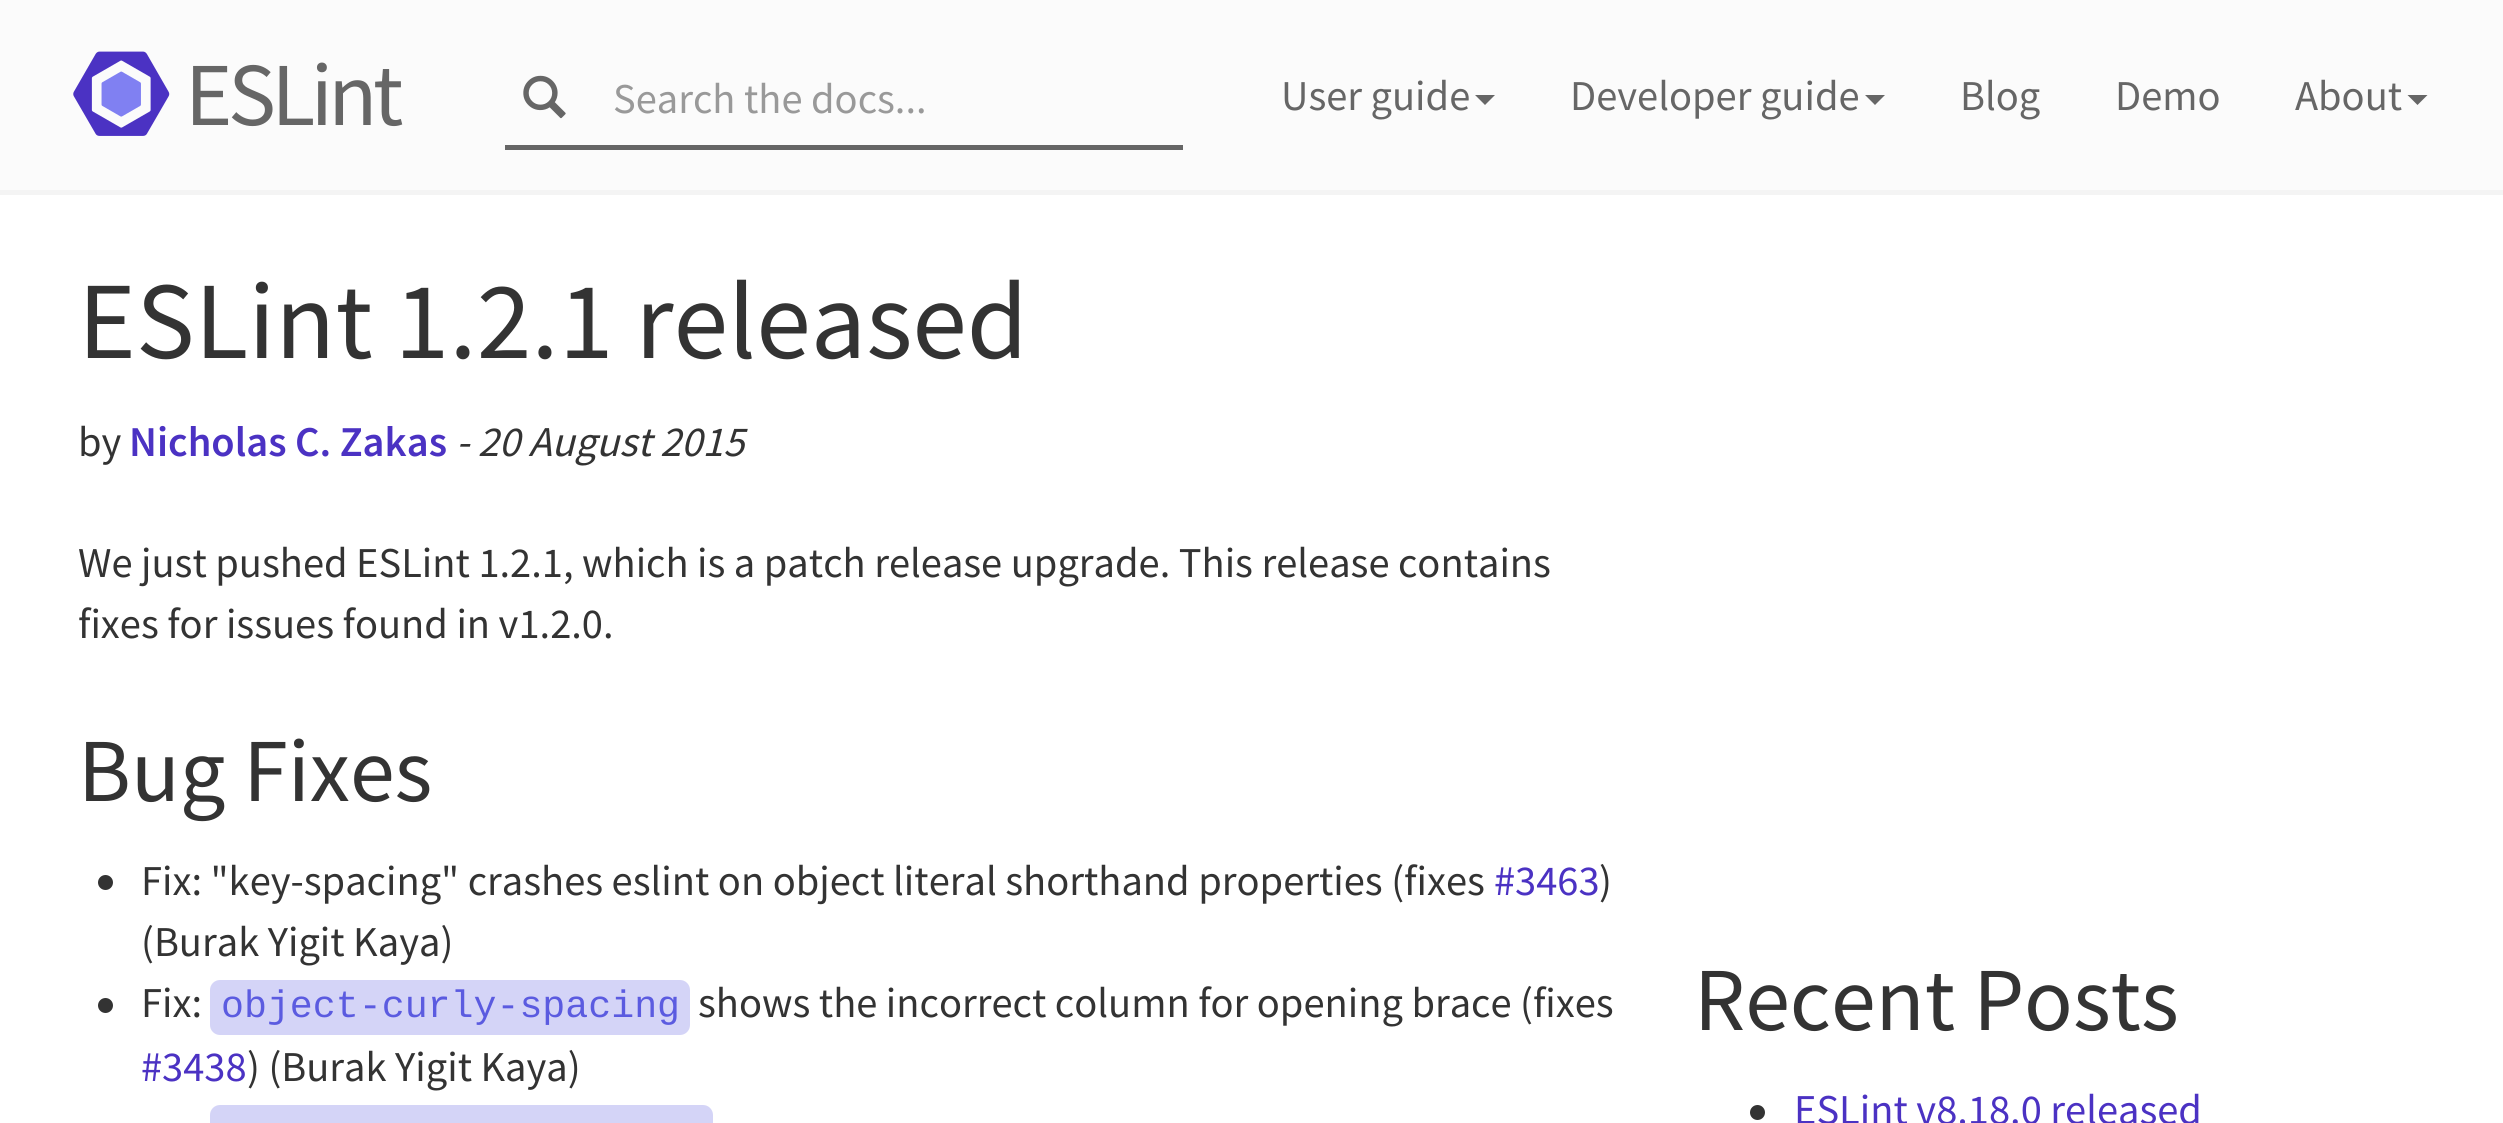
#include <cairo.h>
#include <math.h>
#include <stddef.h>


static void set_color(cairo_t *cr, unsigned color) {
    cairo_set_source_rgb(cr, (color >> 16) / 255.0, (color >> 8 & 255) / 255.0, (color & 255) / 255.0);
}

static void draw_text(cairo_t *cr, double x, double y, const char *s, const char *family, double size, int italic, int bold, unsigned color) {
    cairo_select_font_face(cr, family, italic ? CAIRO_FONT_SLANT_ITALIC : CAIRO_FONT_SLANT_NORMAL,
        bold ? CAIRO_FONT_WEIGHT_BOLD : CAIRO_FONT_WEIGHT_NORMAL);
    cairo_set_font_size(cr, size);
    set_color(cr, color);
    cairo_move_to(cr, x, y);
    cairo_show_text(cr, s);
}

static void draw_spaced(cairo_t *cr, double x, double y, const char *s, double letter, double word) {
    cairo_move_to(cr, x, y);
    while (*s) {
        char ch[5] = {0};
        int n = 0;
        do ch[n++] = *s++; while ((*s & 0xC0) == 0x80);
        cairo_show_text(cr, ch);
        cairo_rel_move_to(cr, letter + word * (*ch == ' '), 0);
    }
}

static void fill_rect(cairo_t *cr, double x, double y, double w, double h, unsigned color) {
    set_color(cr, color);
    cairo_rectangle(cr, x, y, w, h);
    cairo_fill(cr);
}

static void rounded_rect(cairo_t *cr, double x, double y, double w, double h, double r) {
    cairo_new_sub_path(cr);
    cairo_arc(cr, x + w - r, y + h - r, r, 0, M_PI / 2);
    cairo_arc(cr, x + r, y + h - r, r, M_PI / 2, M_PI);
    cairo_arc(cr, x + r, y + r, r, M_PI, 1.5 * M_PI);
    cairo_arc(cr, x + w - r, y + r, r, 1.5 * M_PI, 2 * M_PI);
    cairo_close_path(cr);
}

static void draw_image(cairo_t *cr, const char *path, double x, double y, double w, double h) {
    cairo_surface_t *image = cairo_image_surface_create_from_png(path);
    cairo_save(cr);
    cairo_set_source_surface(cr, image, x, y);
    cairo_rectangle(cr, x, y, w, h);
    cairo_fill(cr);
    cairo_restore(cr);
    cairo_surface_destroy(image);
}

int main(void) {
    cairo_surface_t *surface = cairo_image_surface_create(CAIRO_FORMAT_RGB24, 2503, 1123);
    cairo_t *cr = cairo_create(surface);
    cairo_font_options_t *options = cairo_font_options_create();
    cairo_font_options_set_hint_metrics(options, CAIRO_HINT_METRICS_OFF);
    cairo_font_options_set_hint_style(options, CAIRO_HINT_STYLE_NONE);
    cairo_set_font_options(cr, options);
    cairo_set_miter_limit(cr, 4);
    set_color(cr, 0xFFFFFF);
    cairo_paint(cr);
    fill_rect(cr, 0, 0, 2503, 190, 0xFBFBFB);
    fill_rect(cr, 0, 190, 2503, 5, 0xF4F4F4);
    draw_image(cr, "assets/img1.png", 73, 51, 97, 85);
    cairo_select_font_face(cr, "Source Sans Pro", CAIRO_FONT_SLANT_NORMAL, CAIRO_FONT_WEIGHT_NORMAL);
    cairo_set_font_size(cr, 90);
    set_color(cr, 0x666666);
    draw_spaced(cr, 185, 125, "ESLint", -4.5, 0);
    fill_rect(cr, 505, 145, 678, 5, 0x666666);
    draw_image(cr, "assets/img2.png", 523, 75, 43, 44);
    draw_text(cr, 613, 113, "Search the docs...", "Source Sans Pro", 42.5, 0, 0, 0x999999);
    draw_text(cr, 1281, 110, "User guide", "Source Sans Pro", 42.5, 0, 0, 0x666666);
    cairo_new_path(cr);
    cairo_move_to(cr, 1475, 95);
    cairo_line_to(cr, 1495, 95);
    cairo_line_to(cr, 1485, 105);
    cairo_close_path(cr);
    cairo_fill(cr);
    draw_text(cr, 1570, 110, "Developer guide", "Source Sans Pro", 42.5, 0, 0, 0x666666);
    cairo_new_path(cr);
    cairo_move_to(cr, 1865, 95);
    cairo_line_to(cr, 1885, 95);
    cairo_line_to(cr, 1875, 105);
    cairo_close_path(cr);
    cairo_fill(cr);
    draw_text(cr, 1960, 110, "Blog", "Source Sans Pro", 42.5, 0, 0, 0x666666);
    draw_text(cr, 2115, 110, "Demo", "Source Sans Pro", 42.5, 0, 0, 0x666666);
    draw_text(cr, 2295, 110, "About", "Source Sans Pro", 42.5, 0, 0, 0x666666);
    cairo_new_path(cr);
    cairo_move_to(cr, 2407.5, 95);
    cairo_line_to(cr, 2427.5, 95);
    cairo_line_to(cr, 2417.5, 105);
    cairo_close_path(cr);
    cairo_fill(cr);
    draw_text(cr, 78, 358, "ESLint 1.2.1 released", "Source Sans Pro", 110, 0, 0, 0x333333);
    draw_text(cr, 78, 456, "by", "Source Sans Pro", 42.5, 0, 0, 0x333333);
    draw_text(cr, 129, 456, "Nicholas C. Zakas", "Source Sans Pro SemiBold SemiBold", 42.5, 0, 0, 0x4B32C3);
    draw_text(cr, 456, 456, "- 20 August 2015", "Source Sans Pro", 42.5, 1, 0, 0x333333);
    draw_text(cr, 78, 577, "We just pushed ESLint 1.2.1, which is a patch release upgrade. This release contains", "Source Sans Pro", 42.5, 0, 0, 0x333333);
    draw_text(cr, 78, 638, "fixes for issues found in v1.2.0.", "Source Sans Pro", 42.5, 0, 0, 0x333333);
    draw_text(cr, 78, 801, "Bug Fixes", "Source Sans Pro", 90, 0, 0, 0x333333);
    cairo_new_path(cr);
    cairo_arc(cr, 105.5, 882.5, 7.5, 0, 2 * M_PI);
    cairo_fill(cr);
    draw_text(cr, 141, 895, "Fix: \"key-spacing\" crashes eslint on object literal shorthand properties (fixes", "Source Sans Pro", 42.5, 0, 0, 0x333333);
    draw_text(cr, 1494, 895, "#3463", "Source Sans Pro", 42.5, 0, 0, 0x4B32C3);
    draw_text(cr, 1599, 895, ")", "Source Sans Pro", 42.5, 0, 0, 0x333333);
    draw_text(cr, 141, 956, "(Burak Yigit Kaya)", "Source Sans Pro", 42.5, 0, 0, 0x333333);
    cairo_new_path(cr);
    cairo_arc(cr, 105.5, 1005.5, 7.5, 0, 2 * M_PI);
    cairo_fill(cr);
    draw_text(cr, 141, 1017, "Fix:", "Source Sans Pro", 42.5, 0, 0, 0x333333);
    set_color(cr, 0xD4D4F7);
    rounded_rect(cr, 210, 980, 480, 55, 10);
    cairo_fill(cr);
    draw_text(cr, 221, 1017, "object-curly-spacing", "Liberation Mono", 38.25, 0, 0, 0x5B5BE0);
    draw_text(cr, 698, 1017, "shows the incorrect column for opening brace (fixes", "Source Sans Pro", 42.5, 0, 0, 0x333333);
    draw_text(cr, 141, 1081, "#3438", "Source Sans Pro", 42.5, 0, 0, 0x4B32C3);
    draw_text(cr, 247, 1081, ") (Burak Yigit Kaya)", "Source Sans Pro", 42.5, 0, 0, 0x333333);
    set_color(cr, 0xD4D4F7);
    rounded_rect(cr, 210, 1105, 503, 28, 10);
    cairo_fill(cr);
    draw_text(cr, 1694, 1030, "Recent Posts", "Source Sans Pro", 90, 0, 0, 0x333333);
    cairo_new_path(cr);
    cairo_arc(cr, 1757.5, 1112.5, 7.5, 0, 2 * M_PI);
    cairo_fill(cr);
    draw_text(cr, 1794, 1124, "ESLint v8.18.0 released", "Source Sans Pro", 42.5, 0, 0, 0x4B32C3);
    cairo_surface_write_to_png(surface, "output.png");
    cairo_font_options_destroy(options);
    cairo_destroy(cr);
    cairo_surface_destroy(surface);
    return 0;
}
